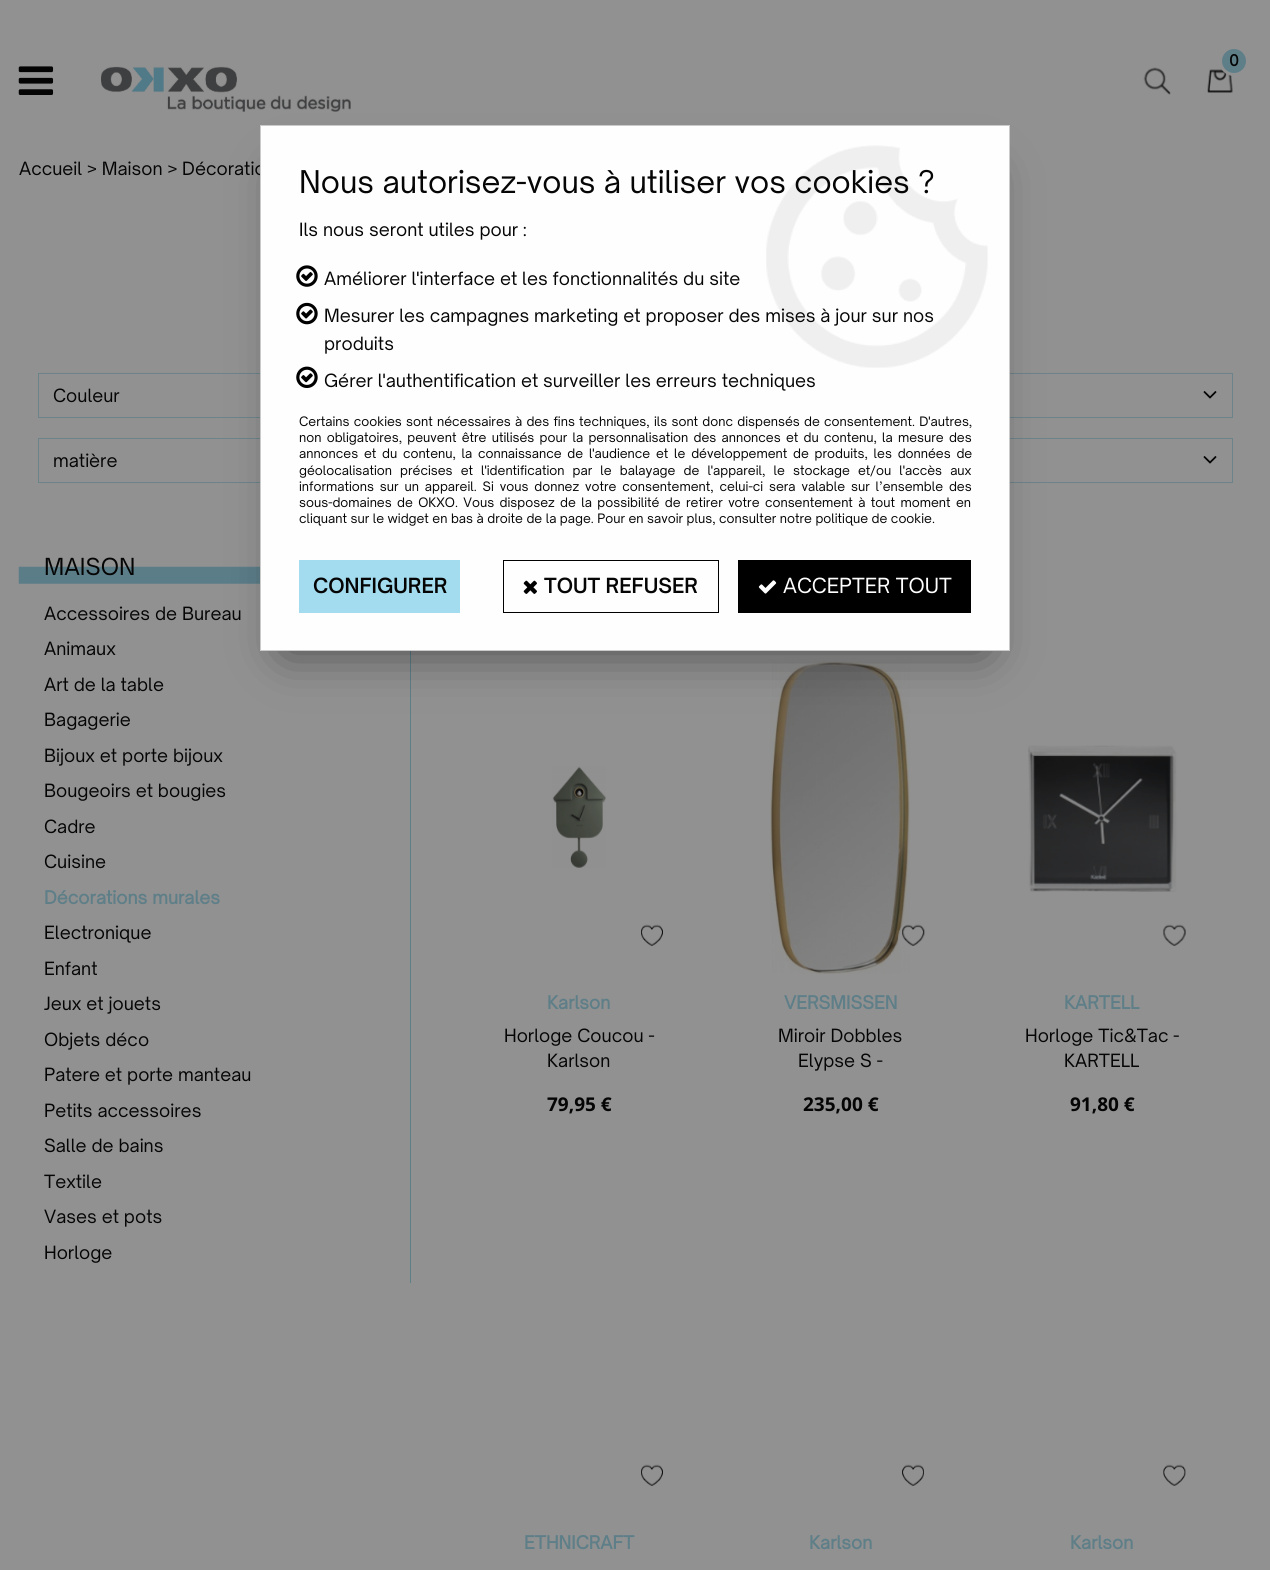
#include <cairo.h>
#include <math.h>
#include <stddef.h>


static void set_color(cairo_t *cr, unsigned color) {
    cairo_set_source_rgb(cr, (color >> 16) / 255.0, (color >> 8 & 255) / 255.0, (color & 255) / 255.0);
}

static void draw_text(cairo_t *cr, double x, double y, const char *s, const char *family, double size, int italic, int bold, unsigned color) {
    cairo_select_font_face(cr, family, italic ? CAIRO_FONT_SLANT_ITALIC : CAIRO_FONT_SLANT_NORMAL,
        bold ? CAIRO_FONT_WEIGHT_BOLD : CAIRO_FONT_WEIGHT_NORMAL);
    cairo_set_font_size(cr, size);
    set_color(cr, color);
    cairo_move_to(cr, x, y);
    cairo_show_text(cr, s);
}

static void draw_spaced(cairo_t *cr, double x, double y, const char *s, double letter, double word) {
    cairo_move_to(cr, x, y);
    while (*s) {
        char ch[5] = {0};
        int n = 0;
        do ch[n++] = *s++; while ((*s & 0xC0) == 0x80);
        cairo_show_text(cr, ch);
        cairo_rel_move_to(cr, letter + word * (*ch == ' '), 0);
    }
}

static void fill_rect(cairo_t *cr, double x, double y, double w, double h, unsigned color) {
    set_color(cr, color);
    cairo_rectangle(cr, x, y, w, h);
    cairo_fill(cr);
}

static void rounded_rect(cairo_t *cr, double x, double y, double w, double h, double r) {
    cairo_new_sub_path(cr);
    cairo_arc(cr, x + w - r, y + h - r, r, 0, M_PI / 2);
    cairo_arc(cr, x + r, y + h - r, r, M_PI / 2, M_PI);
    cairo_arc(cr, x + r, y + r, r, M_PI, 1.5 * M_PI);
    cairo_arc(cr, x + w - r, y + r, r, 1.5 * M_PI, 2 * M_PI);
    cairo_close_path(cr);
}

static void draw_shadow(cairo_t *cr, double x, double y, double w, double h, double r, double blur, double alpha) {
    cairo_push_group_with_content(cr, CAIRO_CONTENT_ALPHA);
    cairo_set_operator(cr, CAIRO_OPERATOR_SOURCE);
    for (int i = 15; i >= -15 && fmin(w, h) + blur * i / 3 > 0; i -= 2) {
        double e = blur * i / 6;
        cairo_set_source_rgba(cr, 0, 0, 0, alpha * erfc((i - 1) / 8.5) / 2);
        rounded_rect(cr, x - e, y - e, w + 2 * e, h + 2 * e, fmax(0, fmin(r + e + blur * .6, fmin(w, h) / 2 + e)));
        cairo_fill(cr);
    }
    cairo_pattern_t *soft = cairo_pop_group(cr);
    cairo_mask(cr, soft);
    cairo_pattern_destroy(soft);
}

static void draw_image(cairo_t *cr, const char *path, double x, double y, double w, double h) {
    cairo_surface_t *image = cairo_image_surface_create_from_png(path);
    cairo_save(cr);
    cairo_set_source_surface(cr, image, x, y);
    cairo_rectangle(cr, x, y, w, h);
    cairo_fill(cr);
    cairo_restore(cr);
    cairo_surface_destroy(image);
}

int main(void) {
    cairo_surface_t *surface = cairo_image_surface_create(CAIRO_FORMAT_RGB24, 1270, 1570);
    cairo_t *cr = cairo_create(surface);
    cairo_font_options_t *options = cairo_font_options_create();
    cairo_font_options_set_hint_metrics(options, CAIRO_HINT_METRICS_OFF);
    cairo_font_options_set_hint_style(options, CAIRO_HINT_STYLE_NONE);
    cairo_set_font_options(cr, options);
    cairo_set_miter_limit(cr, 4);
    set_color(cr, 0x919191);
    cairo_paint(cr);
    draw_image(cr, "assets/img1.png", 1207, 69, 26, 24);
    set_color(cr, 0x5E7E88);
    cairo_arc(cr, 1234, 61, 13.5, 0, 2 * M_PI);
    cairo_fill_preserve(cr);
    set_color(cr, 0x919191);
    cairo_set_line_width(cr, 3);
    cairo_stroke(cr);
    draw_text(cr, 1229, 66, "0", "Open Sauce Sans", 15, 0, 1, 0x050505);
    draw_image(cr, "assets/img2.png", 18, 66, 36, 29);
    draw_image(cr, "assets/img3.png", 101, 66, 250, 46);
    draw_image(cr, "assets/img4.png", 1143, 67, 28, 28);
    draw_text(cr, 19, 175, "Accueil > Maison > Décoratio", "Open Sauce Sans", 17.5, 0, 0, 0x050505);
    cairo_rectangle(cr, 38.5, 373.5, 372, 44);
    set_color(cr, 0x6D838A);
    cairo_set_line_width(cr, 1);
    cairo_stroke(cr);
    draw_text(cr, 53, 402, "Couleur", "Open Sauce Sans", 17.5, 0, 0, 0x050505);
    cairo_rectangle(cr, 859.5, 373.5, 373, 44);
    set_color(cr, 0x6D838A);
    cairo_stroke(cr);
    draw_image(cr, "assets/img5.png", 1203, 391, 14, 8);
    cairo_rectangle(cr, 38.5, 438.5, 372, 44);
    cairo_stroke(cr);
    draw_text(cr, 53, 467, "matière", "Open Sauce Sans", 17.5, 0, 0, 0x050505);
    cairo_rectangle(cr, 859.5, 438.5, 373, 44);
    set_color(cr, 0x6D838A);
    cairo_stroke(cr);
    draw_image(cr, "assets/img5.png", 1203, 456, 14, 8);
    fill_rect(cr, 410, 651, 1, 632, 0x5E7E88);
    draw_image(cr, "assets/img6.png", 18, 550, 242, 34);
    draw_text(cr, 44, 575, "MAISON", "Open Sauce Sans", 22.5, 0, 0, 0x050505);
    draw_text(cr, 44, 620, "Accessoires de Bureau", "Open Sauce Sans", 17.5, 0, 0, 0x050505);
    draw_text(cr, 44, 655, "Animaux", "Open Sauce Sans", 17.5, 0, 0, 0x050505);
    draw_text(cr, 44, 691, "Art de la table", "Open Sauce Sans", 17.5, 0, 0, 0x050505);
    draw_text(cr, 44, 726, "Bagagerie", "Open Sauce Sans", 17.5, 0, 0, 0x050505);
    draw_text(cr, 44, 762, "Bijoux et porte bijoux", "Open Sauce Sans", 17.5, 0, 0, 0x050505);
    draw_text(cr, 44, 797, "Bougeoirs et bougies", "Open Sauce Sans", 17.5, 0, 0, 0x050505);
    draw_text(cr, 44, 833, "Cadre", "Open Sauce Sans", 17.5, 0, 0, 0x050505);
    draw_text(cr, 44, 868, "Cuisine", "Open Sauce Sans", 17.5, 0, 0, 0x050505);
    draw_text(cr, 44, 904, "Décorations murales", "Open Sauce Sans", 17.5, 0, 1, 0x5E7E88);
    draw_text(cr, 44, 939, "Electronique", "Open Sauce Sans", 17.5, 0, 0, 0x050505);
    draw_text(cr, 44, 975, "Enfant", "Open Sauce Sans", 17.5, 0, 0, 0x050505);
    draw_text(cr, 44, 1010, "Jeux et jouets", "Open Sauce Sans", 17.5, 0, 0, 0x050505);
    draw_text(cr, 44, 1046, "Objets déco", "Open Sauce Sans", 17.5, 0, 0, 0x050505);
    draw_text(cr, 44, 1081, "Patere et porte manteau", "Open Sauce Sans", 17.5, 0, 0, 0x050505);
    draw_text(cr, 44, 1117, "Petits accessoires", "Open Sauce Sans", 17.5, 0, 0, 0x050505);
    draw_text(cr, 44, 1152, "Salle de bains", "Open Sauce Sans", 17.5, 0, 0, 0x050505);
    draw_text(cr, 44, 1188, "Textile", "Open Sauce Sans", 17.5, 0, 0, 0x050505);
    draw_text(cr, 44, 1223, "Vases et pots", "Open Sauce Sans", 17.5, 0, 0, 0x050505);
    draw_text(cr, 44, 1259, "Horloge", "Open Sauce Sans", 17.5, 0, 0, 0x050505);
    draw_image(cr, "assets/img7.png", 552, 766, 54, 102);
    draw_image(cr, "assets/img8.png", 641, 924, 22, 22);
    draw_text(cr, 547, 1009, "Karlson", "Open Sauce Sans", 17.5, 0, 1, 0x5E7E88);
    draw_text(cr, 504, 1042, "Horloge Coucou -", "Open Sauce Sans", 17.5, 0, 0, 0x050505);
    draw_text(cr, 547, 1067, "Karlson", "Open Sauce Sans", 17.5, 0, 0, 0x050505);
    draw_text(cr, 547, 1111, "79,95 €", "Open Sans", 19, 0, 1, 0x050505);
    draw_image(cr, "assets/img9.png", 770, 661, 140, 313);
    cairo_set_source_rgba(cr, 0.569, 0.569, 0.569, 0.75);
    cairo_arc(cr, 915.5, 937.5, 17.5, 0, 2 * M_PI);
    cairo_fill(cr);
    draw_image(cr, "assets/img10.png", 902, 924, 23, 22);
    draw_text(cr, 784, 1009, "VERSMISSEN", "Open Sauce Sans", 17.5, 0, 1, 0x5E7E88);
    draw_text(cr, 778, 1042, "Miroir Dobbles", "Open Sauce Sans", 17.5, 0, 0, 0x050505);
    draw_text(cr, 798, 1067, "Elypse S -", "Open Sauce Sans", 17.5, 0, 0, 0x050505);
    draw_text(cr, 803, 1111, "235,00 €", "Open Sans", 19, 0, 1, 0x050505);
    draw_image(cr, "assets/img11.png", 1028, 745, 149, 147);
    draw_image(cr, "assets/img12.png", 1163, 924, 23, 22);
    draw_text(cr, 1064, 1009, "KARTELL", "Open Sauce Sans", 17.5, 0, 1, 0x5E7E88);
    draw_text(cr, 1025, 1042, "Horloge Tic&Tac -", "Open Sauce Sans", 17.5, 0, 0, 0x050505);
    draw_text(cr, 1064, 1067, "KARTELL", "Open Sauce Sans", 17.5, 0, 0, 0x050505);
    draw_text(cr, 1070, 1111, "91,80 €", "Open Sans", 19, 0, 1, 0x050505);
    draw_image(cr, "assets/img13.png", 641, 1464, 22, 22);
    draw_text(cr, 524, 1549, "ETHNICRAFT", "Open Sauce Sans", 17.5, 0, 1, 0x5E7E88);
    draw_image(cr, "assets/img14.png", 902, 1464, 22, 22);
    draw_text(cr, 809, 1549, "Karlson", "Open Sauce Sans", 17.5, 0, 1, 0x5E7E88);
    draw_image(cr, "assets/img15.png", 1163, 1464, 23, 22);
    draw_text(cr, 1070, 1549, "Karlson", "Open Sauce Sans", 17.5, 0, 1, 0x5E7E88);
    set_color(cr, 0x000000);
    draw_shadow(cr, 285, 175, 700, 476, 0, 25, 0.5);
    fill_rect(cr, 261, 126, 748, 524, 0xFEFEFE);
    draw_image(cr, "assets/img16.png", 766, 145, 222, 223);
    cairo_rectangle(cr, 260.5, 125.5, 749, 525);
    set_color(cr, 0xCACACA);
    cairo_stroke(cr);
    draw_text(cr, 299, 193, "Nous autorisez-vous à utiliser vos cookies ?", "Open Sauce Sans", 30, 0, 0, 0x050505);
    draw_text(cr, 299, 236, "Ils nous seront utiles pour :", "Open Sauce Sans", 17.5, 0, 0, 0x050505);
    draw_image(cr, "assets/img17.png", 296, 265, 22, 22);
    draw_text(cr, 324, 285, "Améliorer l'interface et les fonctionnalités du site", "Open Sauce Sans", 17.5, 0, 0, 0x050505);
    draw_image(cr, "assets/img18.png", 296, 302, 22, 23);
    draw_text(cr, 324, 322, "Mesurer les campagnes marketing et proposer des mises à jour sur nos", "Open Sauce Sans", 17.5, 0, 0, 0x050505);
    draw_text(cr, 324, 350, "produits", "Open Sauce Sans", 17.5, 0, 0, 0x050505);
    draw_image(cr, "assets/img19.png", 296, 366, 22, 22);
    draw_text(cr, 324, 387, "Gérer l'authentification et surveiller les erreurs techniques", "Open Sauce Sans", 17.5, 0, 0, 0x050505);
    cairo_set_font_size(cr, 12.5);
    draw_spaced(cr, 299, 426, "Certains cookies sont nécessaires à des fins techniques, ils sont donc dispensés de consentement. D'autres,", 0, 0.75);
    draw_spaced(cr, 299, 442, "non obligatoires, peuvent être utilisés pour la personnalisation des annonces et du contenu, la mesure des", 0, 1.75);
    draw_spaced(cr, 299, 458, "annonces et du contenu, la connaissance de l'audience et le développement de produits, les données de", 0, 2.25);
    draw_spaced(cr, 299, 475, "géolocalisation précises et l'identification par le balayage de l'appareil, le stockage et/ou l'accès aux", 0, 4.6);
    draw_spaced(cr, 299, 491, "informations sur un appareil. Si vous donnez votre consentement, celui-ci sera valable sur l’ensemble des", 0, 2.4);
    draw_spaced(cr, 299, 507, "sous-domaines de OKXO. Vous disposez de la possibilité de retirer votre consentement à tout moment en", 0, 1.9);
    draw_text(cr, 299, 523, "cliquant sur le widget en bas à droite de la page. Pour en savoir plus, consulter notre politique de cookie.", "Open Sauce Sans", 12.5, 0, 0, 0x050505);
    fill_rect(cr, 299, 560, 161, 53, 0xA3DCEF);
    draw_text(cr, 313, 593, "CONFIGURER", "Open Sauce Sans SemiBold", 20, 0, 0, 0x050505);
    cairo_rectangle(cr, 503.5, 560.5, 215, 52);
    set_color(cr, 0x000000);
    cairo_stroke(cr);
    draw_image(cr, "assets/img20.png", 523, 580, 14, 14);
    draw_text(cr, 544, 593, "TOUT REFUSER", "Open Sauce Sans SemiBold", 20, 0, 0, 0x050505);
    fill_rect(cr, 738, 560, 233, 53, 0x000000);
    draw_image(cr, "assets/img21.png", 758, 580, 19, 14);
    draw_text(cr, 783, 593, "ACCEPTER TOUT", "Open Sauce Sans", 20, 0, 0, 0xFFFFFF);
    cairo_surface_write_to_png(surface, "output.png");
    cairo_font_options_destroy(options);
    cairo_destroy(cr);
    cairo_surface_destroy(surface);
    return 0;
}
